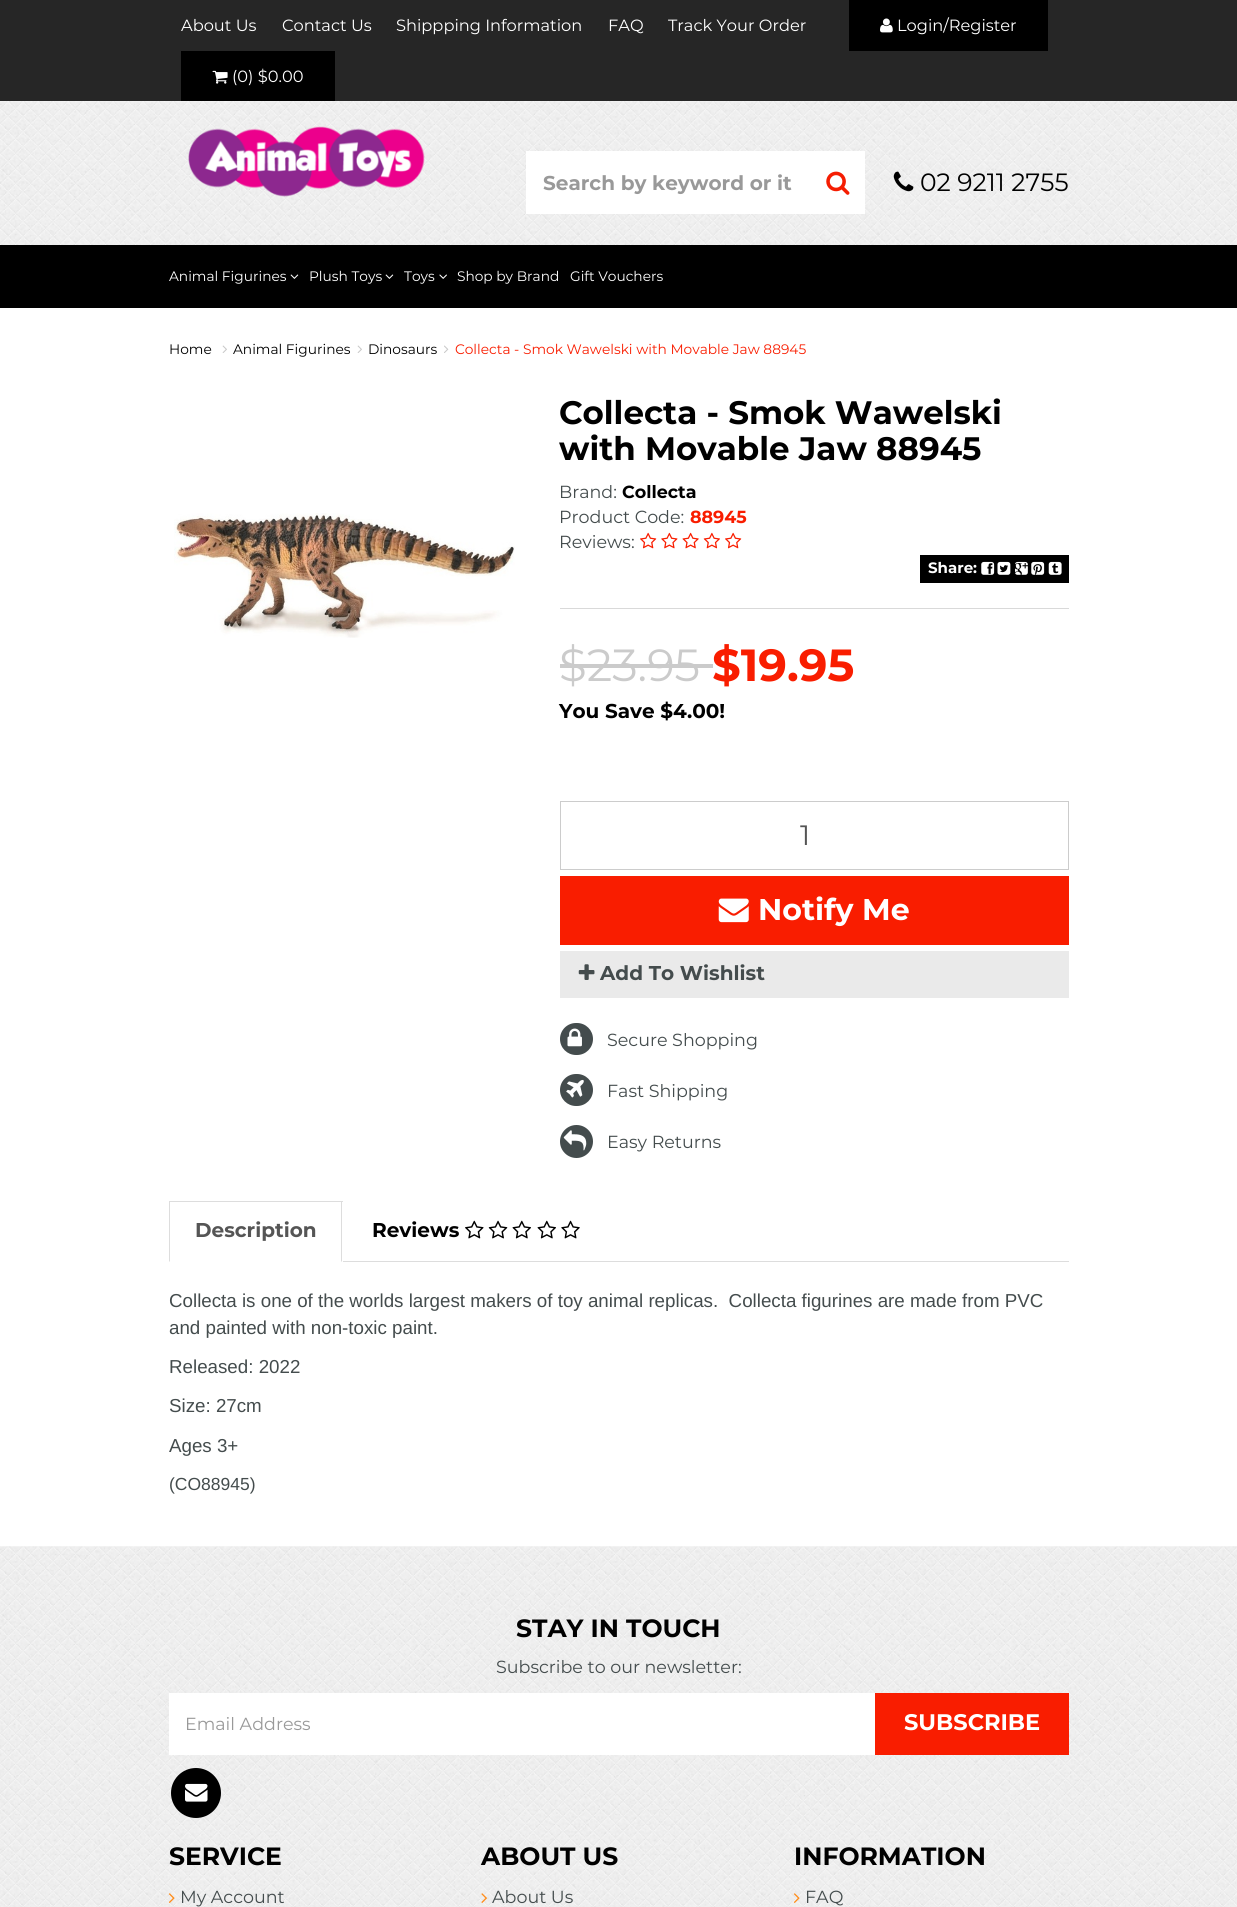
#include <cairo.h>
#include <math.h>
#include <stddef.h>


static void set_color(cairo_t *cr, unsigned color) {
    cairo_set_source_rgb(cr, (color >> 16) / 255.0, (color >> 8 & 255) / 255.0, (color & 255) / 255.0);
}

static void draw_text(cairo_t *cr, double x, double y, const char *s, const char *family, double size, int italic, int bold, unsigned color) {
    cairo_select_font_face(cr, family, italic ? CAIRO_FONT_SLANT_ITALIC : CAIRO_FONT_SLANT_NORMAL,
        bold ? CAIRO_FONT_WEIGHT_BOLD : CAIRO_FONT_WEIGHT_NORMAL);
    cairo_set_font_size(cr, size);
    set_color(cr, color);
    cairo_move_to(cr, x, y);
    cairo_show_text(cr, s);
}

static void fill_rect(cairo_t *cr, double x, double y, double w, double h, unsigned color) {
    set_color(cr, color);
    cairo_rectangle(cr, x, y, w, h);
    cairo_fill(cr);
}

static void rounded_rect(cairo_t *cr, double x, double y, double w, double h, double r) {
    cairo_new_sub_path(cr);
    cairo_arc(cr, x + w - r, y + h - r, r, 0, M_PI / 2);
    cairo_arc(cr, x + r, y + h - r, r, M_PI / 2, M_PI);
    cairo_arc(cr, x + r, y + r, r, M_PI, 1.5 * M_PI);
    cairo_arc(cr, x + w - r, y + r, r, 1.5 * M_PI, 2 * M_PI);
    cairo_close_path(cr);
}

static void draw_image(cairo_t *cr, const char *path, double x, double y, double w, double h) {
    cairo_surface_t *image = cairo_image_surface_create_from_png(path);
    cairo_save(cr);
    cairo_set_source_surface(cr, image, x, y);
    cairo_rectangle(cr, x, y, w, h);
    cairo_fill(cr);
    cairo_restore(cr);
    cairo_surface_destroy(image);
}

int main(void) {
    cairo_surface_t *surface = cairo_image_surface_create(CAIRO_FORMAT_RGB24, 1237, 1907);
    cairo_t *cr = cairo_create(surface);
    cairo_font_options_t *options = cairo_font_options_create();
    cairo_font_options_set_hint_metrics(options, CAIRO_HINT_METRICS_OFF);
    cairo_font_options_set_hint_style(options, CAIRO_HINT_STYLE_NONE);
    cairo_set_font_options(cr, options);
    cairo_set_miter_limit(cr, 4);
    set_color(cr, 0xFFFFFF);
    cairo_paint(cr);
    fill_rect(cr, 0, 0, 1237, 101, 0x262626);
    draw_text(cr, 181, 31, "About Us", "Montserrat", 16.25, 0, 0, 0xFFFFFF);
    draw_text(cr, 282, 31, "Contact Us", "Montserrat", 16.25, 0, 0, 0xFFFFFF);
    draw_text(cr, 396, 31, "Shippping Information", "Montserrat", 16.25, 0, 0, 0xFFFFFF);
    draw_text(cr, 608, 31, "FAQ", "Montserrat", 16.25, 0, 0, 0xFFFFFF);
    draw_text(cr, 668, 31, "Track Your Order", "Montserrat", 16.25, 0, 0, 0xFFFFFF);
    fill_rect(cr, 849, 0, 199, 51, 0x000000);
    draw_image(cr, "assets/img1.png", 880, 18, 13, 15);
    draw_text(cr, 897, 31, "Login/Register", "Montserrat", 16.25, 0, 0, 0xFFFFFF);
    fill_rect(cr, 181, 51, 154, 50, 0x000000);
    draw_image(cr, "assets/img2.png", 212, 70, 16, 14);
    draw_text(cr, 232, 82, "(0) $0.00", "Montserrat", 16.25, 0, 0, 0xFFFFFF);
    draw_image(cr, "assets/img3.png", 0, 101, 1237, 144);
    draw_image(cr, "assets/img4.png", 188, 126, 237, 71);
    fill_rect(cr, 526, 151, 339, 63, 0xFFFFFF);
    draw_text(cr, 543, 190, "Search by keyword or it", "Montserrat", 20, 0, 1, 0x999999);
    draw_image(cr, "assets/img5.png", 826, 171, 24, 24);
    draw_image(cr, "assets/img6.png", 893, 171, 21, 21);
    draw_text(cr, 920, 191, "02 9211 2755", "Montserrat", 25, 0, 0, 0x000000);
    fill_rect(cr, 0, 245, 1237, 63, 0x000000);
    draw_text(cr, 169, 281, "Animal Figurines", "Montserrat", 13.75, 0, 0, 0xFFFFFF);
    draw_image(cr, "assets/img7.png", 290, 274, 9, 5);
    draw_text(cr, 309, 281, "Plush Toys", "Montserrat", 13.75, 0, 0, 0xFFFFFF);
    draw_image(cr, "assets/img7.png", 385, 274, 9, 5);
    draw_text(cr, 404, 281, "Toys", "Montserrat", 13.75, 0, 0, 0xFFFFFF);
    draw_image(cr, "assets/img8.png", 439, 274, 8, 5);
    draw_text(cr, 457, 281, "Shop by Brand", "Montserrat", 13.75, 0, 0, 0xFFFFFF);
    draw_text(cr, 570, 281, "Gift Vouchers", "Montserrat", 13.75, 0, 0, 0xFFFFFF);
    draw_text(cr, 169, 354, "Home", "Montserrat", 13.75, 0, 0, 0x000000);
    draw_image(cr, "assets/img9.png", 222, 345, 5, 8);
    draw_text(cr, 233, 354, "Animal Figurines", "Montserrat", 13.75, 0, 0, 0x000000);
    draw_image(cr, "assets/img9.png", 357, 345, 5, 8);
    draw_text(cr, 368, 354, "Dinosaurs", "Montserrat", 13.75, 0, 0, 0x000000);
    draw_image(cr, "assets/img10.png", 444, 345, 5, 8);
    draw_text(cr, 455, 354, "Collecta - Smok Wawelski with Movable Jaw 88945", "Montserrat", 13.75, 0, 0, 0xF91D00);
    draw_image(cr, "assets/img11.png", 174, 513, 341, 125);
    draw_text(cr, 559, 424, "Collecta - Smok Wawelski", "Montserrat", 32.5, 0, 1, 0x000000);
    draw_text(cr, 559, 460, "with Movable Jaw 88945", "Montserrat", 32.5, 0, 1, 0x000000);
    draw_text(cr, 559, 498, "Brand:", "Montserrat", 17.5, 0, 0, 0x444C4D);
    draw_text(cr, 622, 498, "Collecta", "Montserrat", 17.5, 0, 1, 0x000000);
    draw_text(cr, 559, 523, "Product Code:", "Montserrat", 17.5, 0, 0, 0x444C4D);
    draw_text(cr, 690, 523, "88945", "Montserrat", 17.5, 0, 1, 0xF91D00);
    draw_text(cr, 559, 548, "Reviews:", "Montserrat", 17.5, 0, 0, 0x444C4D);
    draw_image(cr, "assets/img12.png", 640, 532, 17, 17);
    draw_image(cr, "assets/img13.png", 661, 532, 17, 17);
    draw_image(cr, "assets/img14.png", 682, 532, 17, 17);
    draw_image(cr, "assets/img15.png", 703, 532, 17, 17);
    draw_image(cr, "assets/img12.png", 725, 532, 17, 17);
    fill_rect(cr, 920, 555, 149, 28, 0x000000);
    draw_text(cr, 928, 573, "Share:", "Montserrat", 15, 0, 1, 0xFFFFFF);
    draw_image(cr, "assets/img16.png", 981, 561, 14, 14);
    draw_image(cr, "assets/img17.png", 997, 561, 14, 14);
    draw_image(cr, "assets/img18.png", 1015, 561, 13, 14);
    draw_image(cr, "assets/img19.png", 1031, 561, 14, 14);
    draw_image(cr, "assets/img20.png", 1048, 561, 14, 14);
    fill_rect(cr, 560, 608, 509, 1, 0xD9D9D9);
    draw_text(cr, 559, 681, "$23.95", "Montserrat", 45, 0, 0, 0xCBCBCB);
    fill_rect(cr, 560, 664, 153, 4, 0xCBCBCB);
    draw_text(cr, 712, 681, "$19.95", "Montserrat", 45, 0, 1, 0xF91D00);
    draw_text(cr, 559, 718, "You Save $4.00!", "Montserrat", 20, 0, 1, 0x000000);
    cairo_rectangle(cr, 560.5, 801.5, 508, 68);
    set_color(cr, 0xCCCCCC);
    cairo_set_line_width(cr, 1);
    cairo_stroke(cr);
    draw_text(cr, 800, 845, "1", "Montserrat", 28, 0, 0, 0x555555);
    fill_rect(cr, 560, 876, 509, 69, 0xF91D00);
    draw_image(cr, "assets/img21.png", 718, 898, 31, 25);
    draw_text(cr, 758, 920, "Notify Me", "Montserrat", 30, 0, 1, 0xFFFFFF);
    fill_rect(cr, 560, 951, 509, 47, 0xEAEAEA);
    draw_image(cr, "assets/img22.png", 578, 964, 17, 16);
    draw_text(cr, 600, 980, "Add To Wishlist", "Montserrat", 20, 0, 1, 0x444C4D);
    rounded_rect(cr, 560, 1023, 33, 32, 16);
    cairo_fill(cr);
    draw_image(cr, "assets/img23.png", 567, 1028, 15, 19);
    draw_text(cr, 607, 1046, "Secure Shopping", "Montserrat", 17.5, 0, 0, 0x444C4D);
    rounded_rect(cr, 560, 1074, 33, 32, 16);
    cairo_fill(cr);
    draw_image(cr, "assets/img24.png", 566, 1079, 18, 19);
    draw_text(cr, 607, 1097, "Fast Shipping", "Montserrat", 17.5, 0, 0, 0x444C4D);
    cairo_new_path(cr);
    cairo_arc(cr, 576.5, 1141.5, 16.5, 0, 2 * M_PI);
    cairo_fill(cr);
    draw_image(cr, "assets/img25.png", 563, 1130, 24, 21);
    draw_text(cr, 607, 1148, "Easy Returns", "Montserrat", 17.5, 0, 0, 0x444C4D);
    fill_rect(cr, 343, 1261, 726, 1, 0xDDDDDD);
    fill_rect(cr, 169, 1201, 174, 1, 0xDDDDDD);
    cairo_new_path(cr);
    cairo_move_to(cr, 342, 1201);
    cairo_line_to(cr, 342, 1262);
    cairo_line_to(cr, 341, 1261);
    cairo_line_to(cr, 341, 1202);
    cairo_close_path(cr);
    cairo_fill(cr);
    cairo_new_path(cr);
    cairo_move_to(cr, 169, 1262);
    cairo_line_to(cr, 169, 1201);
    cairo_line_to(cr, 170, 1202);
    cairo_line_to(cr, 170, 1261);
    cairo_close_path(cr);
    cairo_fill(cr);
    draw_text(cr, 195, 1237, "Description", "Montserrat", 20, 0, 1, 0x555555);
    draw_text(cr, 372, 1237, "Reviews", "Montserrat", 20, 0, 1, 0x000000);
    draw_image(cr, "assets/img26.png", 465, 1220, 19, 19);
    draw_image(cr, "assets/img27.png", 488, 1220, 20, 19);
    draw_image(cr, "assets/img28.png", 512, 1220, 19, 19);
    draw_image(cr, "assets/img28.png", 537, 1220, 19, 19);
    draw_image(cr, "assets/img29.png", 561, 1220, 19, 19);
    draw_text(cr, 169, 1307, "Collecta is one of the worlds largest makers of toy animal replicas.  Collecta figurines are made from PVC", "Liberation Sans", 18.75, 0, 0, 0x444C4D);
    draw_text(cr, 169, 1334, "and painted with non-toxic paint.", "Liberation Sans", 18.75, 0, 0, 0x444C4D);
    draw_text(cr, 169, 1373, "Released: 2022", "Liberation Sans", 18.75, 0, 0, 0x444C4D);
    draw_text(cr, 169, 1412, "Size: 27cm", "Liberation Sans", 18.75, 0, 0, 0x444C4D);
    draw_text(cr, 169, 1452, "Ages 3+", "Liberation Sans", 18.75, 0, 0, 0x444C4D);
    draw_text(cr, 169, 1490, "(CO88945)", "Liberation Sans", 17.5, 0, 0, 0x444C4D);
    draw_image(cr, "assets/img30.png", 0, 1546, 1237, 361);
    draw_text(cr, 516, 1637, "STAY IN TOUCH", "Montserrat", 25, 0, 1, 0x000000);
    draw_text(cr, 496, 1673, "Subscribe to our newsletter:", "Montserrat", 17.5, 0, 0, 0x444C4D);
    fill_rect(cr, 169, 1693, 706, 62, 0xFFFFFF);
    draw_text(cr, 185, 1730, "Email Address", "Montserrat", 17.5, 0, 0, 0x999999);
    fill_rect(cr, 875, 1693, 194, 62, 0xF91D00);
    draw_text(cr, 904, 1730, "SUBSCRIBE", "Montserrat", 22.5, 0, 1, 0xFFFFFF);
    set_color(cr, 0x000000);
    cairo_new_path(cr);
    cairo_arc(cr, 196, 1793, 25, 0, 2 * M_PI);
    cairo_fill(cr);
    draw_image(cr, "assets/img31.png", 185, 1783, 23, 19);
    draw_text(cr, 169, 1865, "SERVICE", "Montserrat", 25, 0, 1, 0x000000);
    draw_image(cr, "assets/img32.png", 168, 1893, 7, 10);
    draw_text(cr, 180, 1903, "My Account", "Montserrat", 17.5, 0, 0, 0x444C4D);
    draw_text(cr, 481, 1865, "ABOUT US", "Montserrat", 25, 0, 1, 0x000000);
    draw_image(cr, "assets/img33.png", 481, 1893, 6, 10);
    draw_text(cr, 492, 1903, "About Us", "Montserrat", 17.5, 0, 0, 0x444C4D);
    draw_text(cr, 794, 1865, "INFORMATION", "Montserrat", 25, 0, 1, 0x000000);
    draw_image(cr, "assets/img34.png", 793, 1893, 7, 10);
    draw_text(cr, 805, 1903, "FAQ", "Montserrat", 17.5, 0, 0, 0x444C4D);
    cairo_surface_write_to_png(surface, "output.png");
    cairo_font_options_destroy(options);
    cairo_destroy(cr);
    cairo_surface_destroy(surface);
    return 0;
}
